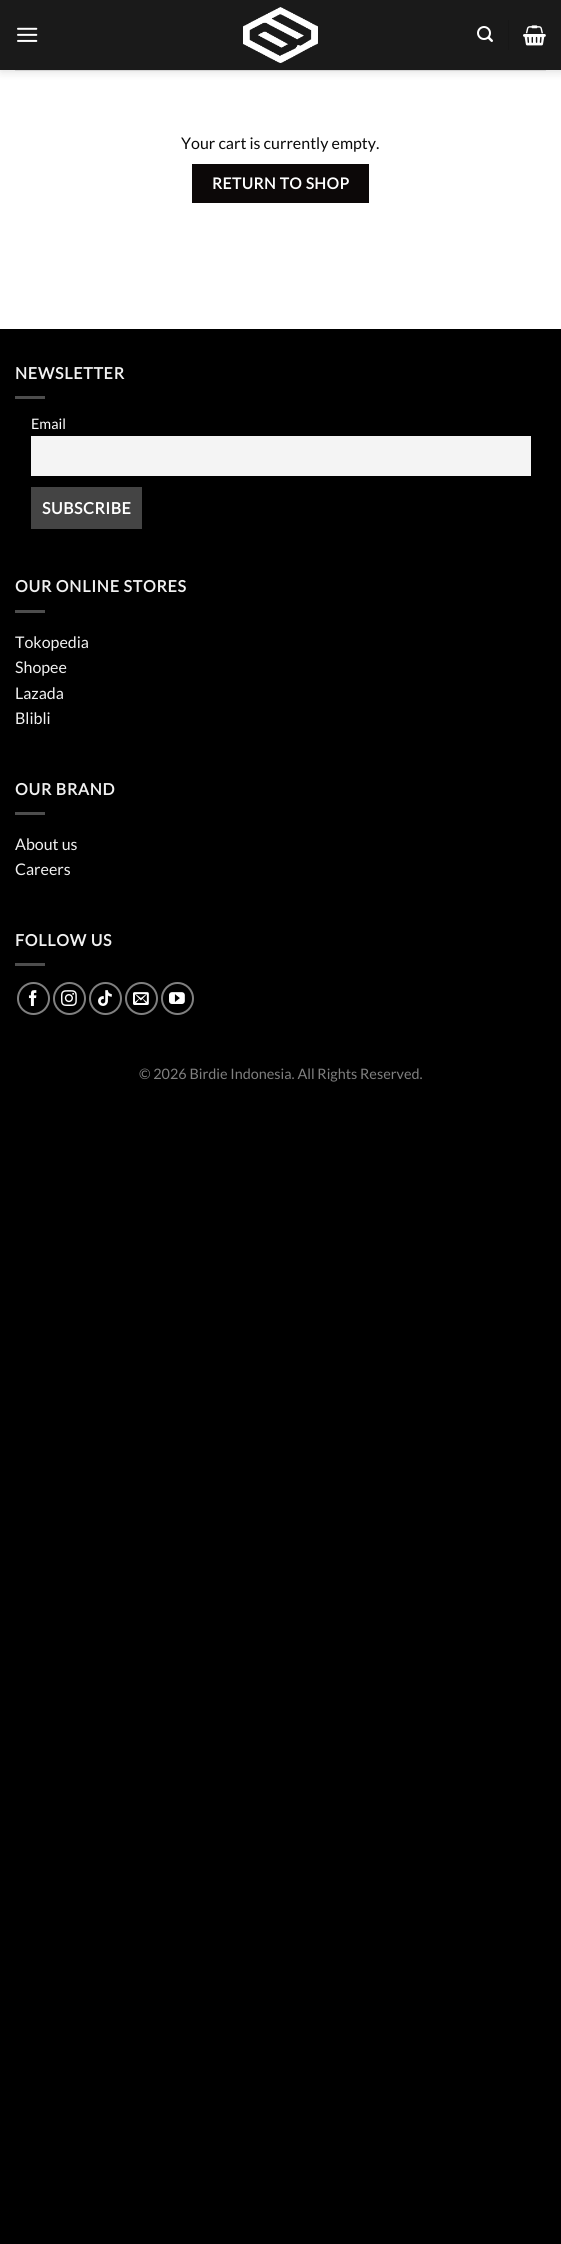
#include <cairo.h>
#include <math.h>
#include <stddef.h>


static void set_color(cairo_t *cr, unsigned color) {
    cairo_set_source_rgb(cr, (color >> 16) / 255.0, (color >> 8 & 255) / 255.0, (color & 255) / 255.0);
}

static void draw_text(cairo_t *cr, double x, double y, const char *s, const char *family, double size, int italic, int bold, unsigned color) {
    cairo_select_font_face(cr, family, italic ? CAIRO_FONT_SLANT_ITALIC : CAIRO_FONT_SLANT_NORMAL,
        bold ? CAIRO_FONT_WEIGHT_BOLD : CAIRO_FONT_WEIGHT_NORMAL);
    cairo_set_font_size(cr, size);
    set_color(cr, color);
    cairo_move_to(cr, x, y);
    cairo_show_text(cr, s);
}

static void draw_spaced(cairo_t *cr, double x, double y, const char *s, double letter, double word) {
    cairo_move_to(cr, x, y);
    while (*s) {
        char ch[5] = {0};
        int n = 0;
        do ch[n++] = *s++; while ((*s & 0xC0) == 0x80);
        cairo_show_text(cr, ch);
        cairo_rel_move_to(cr, letter + word * (*ch == ' '), 0);
    }
}

static void fill_rect(cairo_t *cr, double x, double y, double w, double h, unsigned color) {
    set_color(cr, color);
    cairo_rectangle(cr, x, y, w, h);
    cairo_fill(cr);
}

static void rounded_rect(cairo_t *cr, double x, double y, double w, double h, double r) {
    cairo_new_sub_path(cr);
    cairo_arc(cr, x + w - r, y + h - r, r, 0, M_PI / 2);
    cairo_arc(cr, x + r, y + h - r, r, M_PI / 2, M_PI);
    cairo_arc(cr, x + r, y + r, r, M_PI, 1.5 * M_PI);
    cairo_arc(cr, x + w - r, y + r, r, 1.5 * M_PI, 2 * M_PI);
    cairo_close_path(cr);
}

static void draw_shadow(cairo_t *cr, double x, double y, double w, double h, double r, double blur, double alpha) {
    cairo_push_group_with_content(cr, CAIRO_CONTENT_ALPHA);
    cairo_set_operator(cr, CAIRO_OPERATOR_SOURCE);
    for (int i = 15; i >= -15 && fmin(w, h) + blur * i / 3 > 0; i -= 2) {
        double e = blur * i / 6;
        cairo_set_source_rgba(cr, 0, 0, 0, alpha * erfc((i - 1) / 8.5) / 2);
        rounded_rect(cr, x - e, y - e, w + 2 * e, h + 2 * e, fmax(0, fmin(r + e + blur * .6, fmin(w, h) / 2 + e)));
        cairo_fill(cr);
    }
    cairo_pattern_t *soft = cairo_pop_group(cr);
    cairo_mask(cr, soft);
    cairo_pattern_destroy(soft);
}

static void draw_image(cairo_t *cr, const char *path, double x, double y, double w, double h) {
    cairo_surface_t *image = cairo_image_surface_create_from_png(path);
    cairo_save(cr);
    cairo_set_source_surface(cr, image, x, y);
    cairo_rectangle(cr, x, y, w, h);
    cairo_fill(cr);
    cairo_restore(cr);
    cairo_surface_destroy(image);
}

int main(void) {
    cairo_surface_t *surface = cairo_image_surface_create(CAIRO_FORMAT_RGB24, 561, 2244);
    cairo_t *cr = cairo_create(surface);
    cairo_font_options_t *options = cairo_font_options_create();
    cairo_font_options_set_hint_metrics(options, CAIRO_HINT_METRICS_OFF);
    cairo_font_options_set_hint_style(options, CAIRO_HINT_STYLE_NONE);
    cairo_set_font_options(cr, options);
    cairo_set_miter_limit(cr, 4);
    set_color(cr, 0x000000);
    cairo_paint(cr);
    fill_rect(cr, 0, 70, 561, 259, 0xFFFFFF);
    set_color(cr, 0x000000);
    draw_shadow(cr, 1, 1, 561, 70, 0, 5, 0.15);
    fill_rect(cr, 0, 0, 561, 70, 0x1A1A1A);
    draw_image(cr, "assets/img1.png", 17, 27, 21, 15);
    draw_image(cr, "assets/img2.png", 243, 7, 75, 56);
    draw_image(cr, "assets/img3.png", 477, 26, 16, 16);
    fill_rect(cr, 508, 20, 1, 30, 0x171717);
    draw_image(cr, "assets/img4.png", 523, 25, 23, 21);
    fill_rect(cr, 15, 70, 531, 1, 0xD4D4D4);
    draw_text(cr, 181, 149, "Your cart is currently empty.", "Lato", 16, 0, 0, 0x0A0A0A);
    fill_rect(cr, 192, 164, 177, 39, 0x0C0808);
    cairo_select_font_face(cr, "Lato", CAIRO_FONT_SLANT_NORMAL, CAIRO_FONT_WEIGHT_BOLD);
    cairo_set_font_size(cr, 15.5);
    set_color(cr, 0xFFFFFF);
    draw_spaced(cr, 212, 189, "RETURN TO SHOP", 0.5, 0);
    cairo_set_font_size(cr, 16);
    set_color(cr, 0xF1F1F1);
    draw_spaced(cr, 15, 379, "NEWSLETTER", 0.75, 0);
    fill_rect(cr, 15, 396, 30, 3, 0x4D4D4D);
    draw_text(cr, 31, 429, "Email", "Lato", 14.4, 0, 0, 0xFFFFFF);
    fill_rect(cr, 31, 436, 500, 40, 0xF4F4F4);
    fill_rect(cr, 31, 487, 111, 42, 0x444444);
    cairo_select_font_face(cr, "Lato", CAIRO_FONT_SLANT_NORMAL, CAIRO_FONT_WEIGHT_BOLD);
    cairo_set_font_size(cr, 16);
    set_color(cr, 0xFFFFFF);
    draw_spaced(cr, 42, 514, "SUBSCRIBE", 0.5, 0);
    set_color(cr, 0xF1F1F1);
    draw_spaced(cr, 15, 592, "OUR ONLINE STORES", 0.75, 0);
    fill_rect(cr, 15, 610, 30, 3, 0x4D4D4D);
    draw_text(cr, 15, 648, "Tokopedia", "Lato", 16, 0, 0, 0xF1F1F1);
    draw_text(cr, 15, 673, "Shopee", "Lato", 16, 0, 0, 0xF1F1F1);
    draw_text(cr, 15, 699, "Lazada", "Lato", 16, 0, 0, 0xF1F1F1);
    draw_text(cr, 15, 724, "Blibli", "Lato", 16, 0, 0, 0xF1F1F1);
    cairo_select_font_face(cr, "Lato", CAIRO_FONT_SLANT_NORMAL, CAIRO_FONT_WEIGHT_BOLD);
    draw_spaced(cr, 15, 795, "OUR BRAND", 0.75, 0);
    fill_rect(cr, 15, 812, 30, 3, 0x4D4D4D);
    draw_text(cr, 15, 850, "About us", "Lato", 16, 0, 0, 0xF1F1F1);
    draw_text(cr, 15, 875, "Careers", "Lato", 16, 0, 0, 0xF1F1F1);
    cairo_select_font_face(cr, "Lato", CAIRO_FONT_SLANT_NORMAL, CAIRO_FONT_WEIGHT_BOLD);
    draw_spaced(cr, 15, 946, "FOLLOW US", 0.75, 0);
    fill_rect(cr, 15, 963, 30, 3, 0x4D4D4D);
    cairo_new_path(cr);
    cairo_arc(cr, 33.5, 998.5, 15.5, 0, 2 * M_PI);
    set_color(cr, 0x808080);
    cairo_stroke(cr);
    draw_image(cr, "assets/img5.png", 28, 990, 9, 16);
    cairo_arc(cr, 69.5, 998.5, 15.5, 0, 2 * M_PI);
    cairo_stroke(cr);
    draw_image(cr, "assets/img6.png", 61, 990, 16, 16);
    cairo_arc(cr, 105.5, 998.5, 15.5, 0, 2 * M_PI);
    cairo_stroke(cr);
    draw_image(cr, "assets/img7.png", 98, 990, 14, 16);
    cairo_arc(cr, 141.5, 998.5, 15.5, 0, 2 * M_PI);
    cairo_stroke(cr);
    draw_image(cr, "assets/img8.png", 133, 992, 16, 13);
    cairo_arc(cr, 177.5, 998.5, 15.5, 0, 2 * M_PI);
    cairo_stroke(cr);
    draw_image(cr, "assets/img9.png", 169, 992, 16, 12);
    draw_text(cr, 139, 1079, "© 2026 Birdie Indonesia. All Rights Reserved.", "Lato", 14.4, 0, 0, 0x808080);
    cairo_surface_write_to_png(surface, "output.png");
    cairo_font_options_destroy(options);
    cairo_destroy(cr);
    cairo_surface_destroy(surface);
    return 0;
}
